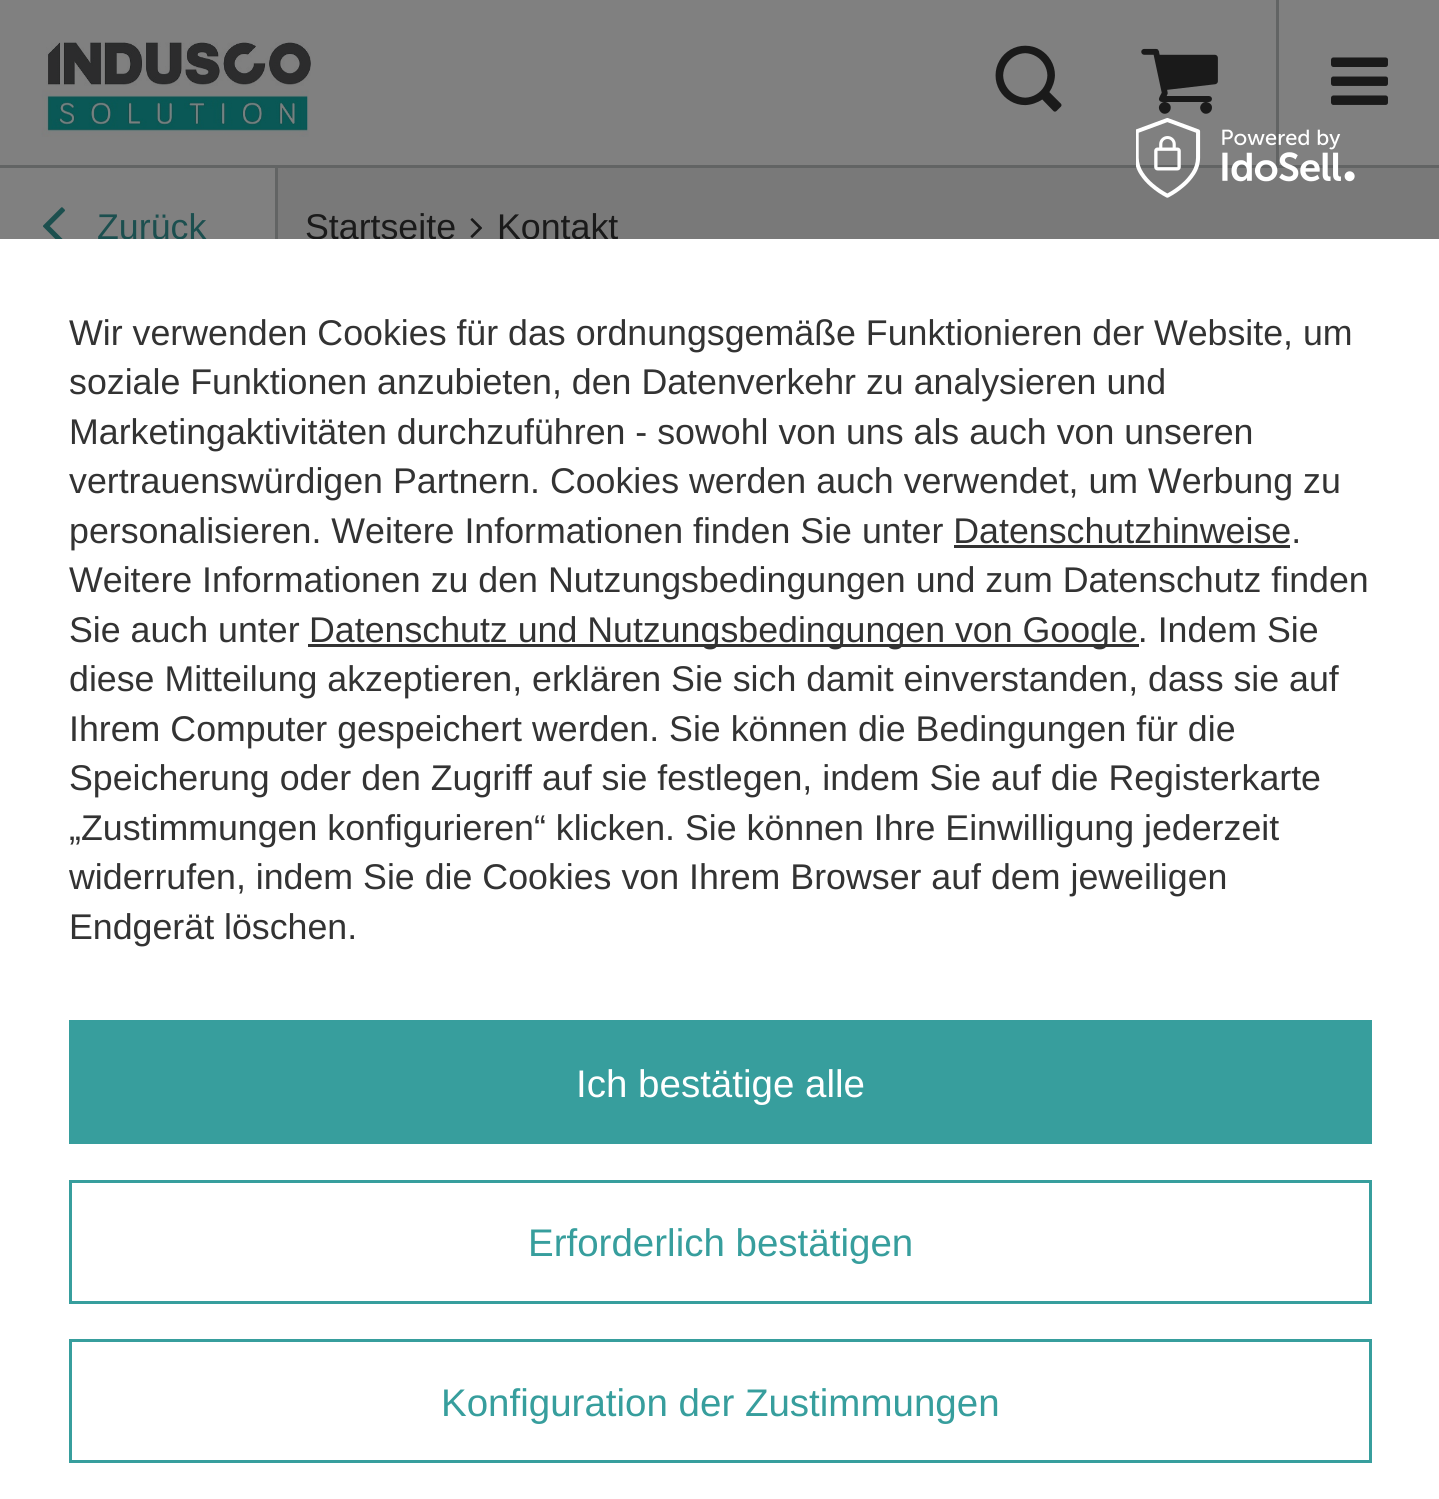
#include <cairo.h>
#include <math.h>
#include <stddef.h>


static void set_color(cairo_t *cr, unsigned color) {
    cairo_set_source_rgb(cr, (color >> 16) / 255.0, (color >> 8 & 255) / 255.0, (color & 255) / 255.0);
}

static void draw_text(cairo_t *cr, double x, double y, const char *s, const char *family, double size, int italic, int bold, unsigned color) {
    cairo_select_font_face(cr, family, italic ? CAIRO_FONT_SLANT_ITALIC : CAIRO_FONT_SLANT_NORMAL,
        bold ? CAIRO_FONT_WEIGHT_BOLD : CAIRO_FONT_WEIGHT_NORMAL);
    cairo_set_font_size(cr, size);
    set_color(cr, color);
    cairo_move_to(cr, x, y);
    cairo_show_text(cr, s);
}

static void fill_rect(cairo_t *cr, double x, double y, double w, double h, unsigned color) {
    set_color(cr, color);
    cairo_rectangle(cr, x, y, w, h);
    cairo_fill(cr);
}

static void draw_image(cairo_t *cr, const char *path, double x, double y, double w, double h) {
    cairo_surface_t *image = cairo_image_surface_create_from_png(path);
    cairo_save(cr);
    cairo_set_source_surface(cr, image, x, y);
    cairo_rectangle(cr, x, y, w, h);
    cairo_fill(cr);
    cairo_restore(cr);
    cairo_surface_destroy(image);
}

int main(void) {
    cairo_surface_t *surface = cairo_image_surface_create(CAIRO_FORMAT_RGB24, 1439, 1499);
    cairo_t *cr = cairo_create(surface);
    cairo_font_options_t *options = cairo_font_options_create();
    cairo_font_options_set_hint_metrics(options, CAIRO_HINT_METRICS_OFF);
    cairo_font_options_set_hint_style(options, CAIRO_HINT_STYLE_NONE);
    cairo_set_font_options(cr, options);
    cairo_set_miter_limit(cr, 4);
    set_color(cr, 0x808080);
    cairo_paint(cr);
    fill_rect(cr, 0, 165, 1439, 3, 0x626464);
    draw_image(cr, "assets/img1.png", 41, 42, 270, 95);
    draw_image(cr, "assets/img2.png", 995, 45, 67, 67);
    draw_image(cr, "assets/img3.png", 1141, 48, 77, 66);
    fill_rect(cr, 1276, 0, 3, 165, 0x626464);
    draw_image(cr, "assets/img4.png", 1331, 57, 57, 48);
    draw_image(cr, "assets/img5.png", 43, 207, 22, 32);
    draw_text(cr, 97, 239, "Zurück", "Liberation Sans", 35.75, 0, 0, 0x1C4F4F);
    fill_rect(cr, 278, 168, 1161, 71, 0x797979);
    fill_rect(cr, 275, 168, 3, 71, 0x626464);
    draw_text(cr, 305, 239, "Startseite", "Liberation Sans", 35.75, 0, 0, 0x1A1A1A);
    draw_image(cr, "assets/img6.png", 470, 218, 12, 20);
    draw_text(cr, 497, 239, "Kontakt", "Liberation Sans", 35.75, 0, 0, 0x1A1A1A);
    fill_rect(cr, 0, 239, 1439, 1260, 0xFFFFFF);
    draw_image(cr, "assets/img7.png", 1136, 118, 219, 80);
    draw_text(cr, 69, 345, "Wir verwenden Cookies für das ordnungsgemäße Funktionieren der Website, um", "Liberation Sans", 35.75, 0, 0, 0x333333);
    draw_text(cr, 69, 394, "soziale Funktionen anzubieten, den Datenverkehr zu analysieren und", "Liberation Sans", 35.75, 0, 0, 0x333333);
    draw_text(cr, 69, 444, "Marketingaktivitäten durchzuführen - sowohl von uns als auch von unseren", "Liberation Sans", 35.75, 0, 0, 0x333333);
    draw_text(cr, 69, 493, "vertrauenswürdigen Partnern. Cookies werden auch verwendet, um Werbung zu", "Liberation Sans", 35.75, 0, 0, 0x333333);
    draw_text(cr, 69, 543, "personalisieren. Weitere Informationen finden Sie unter Datenschutzhinweise.", "Liberation Sans", 35.75, 0, 0, 0x333333);
    fill_rect(cr, 954, 545, 336, 3, 0x333333);
    draw_text(cr, 69, 592, "Weitere Informationen zu den Nutzungsbedingungen und zum Datenschutz finden", "Liberation Sans", 35.75, 0, 0, 0x333333);
    draw_text(cr, 69, 642, "Sie auch unter", "Liberation Sans", 35.75, 0, 0, 0x333333);
    fill_rect(cr, 308, 644, 831, 3, 0x333333);
    draw_text(cr, 309, 642, "Datenschutz und Nutzungsbedingungen von Google. Indem Sie", "Liberation Sans", 35.75, 0, 0, 0x333333);
    draw_text(cr, 69, 691, "diese Mitteilung akzeptieren, erklären Sie sich damit einverstanden, dass sie auf", "Liberation Sans", 35.75, 0, 0, 0x333333);
    draw_text(cr, 69, 741, "Ihrem Computer gespeichert werden. Sie können die Bedingungen für die", "Liberation Sans", 35.75, 0, 0, 0x333333);
    draw_text(cr, 69, 790, "Speicherung oder den Zugriff auf sie festlegen, indem Sie auf die Registerkarte", "Liberation Sans", 35.75, 0, 0, 0x333333);
    draw_text(cr, 69, 840, "„Zustimmungen konfigurieren“ klicken. Sie können Ihre Einwilligung jederzeit", "Liberation Sans", 35.75, 0, 0, 0x333333);
    draw_text(cr, 69, 889, "widerrufen, indem Sie die Cookies von Ihrem Browser auf dem jeweiligen", "Liberation Sans", 35.75, 0, 0, 0x333333);
    draw_text(cr, 69, 939, "Endgerät löschen.", "Liberation Sans", 35.75, 0, 0, 0x333333);
    fill_rect(cr, 69, 1020, 1303, 124, 0x379E9D);
    draw_text(cr, 576, 1097, "Ich bestätige alle", "Liberation Sans", 38.5, 0, 0, 0xFFFFFF);
    cairo_rectangle(cr, 70.5, 1181.5, 1300, 121);
    set_color(cr, 0x379E9D);
    cairo_set_line_width(cr, 3);
    cairo_stroke(cr);
    draw_text(cr, 528, 1256, "Erforderlich bestätigen", "Liberation Sans", 38.5, 0, 0, 0x379E9D);
    cairo_rectangle(cr, 70.5, 1340.5, 1300, 121);
    cairo_stroke(cr);
    draw_text(cr, 441, 1416, "Konfiguration der Zustimmungen", "Liberation Sans", 38.5, 0, 0, 0x379E9D);
    cairo_surface_write_to_png(surface, "output.png");
    cairo_font_options_destroy(options);
    cairo_destroy(cr);
    cairo_surface_destroy(surface);
    return 0;
}
